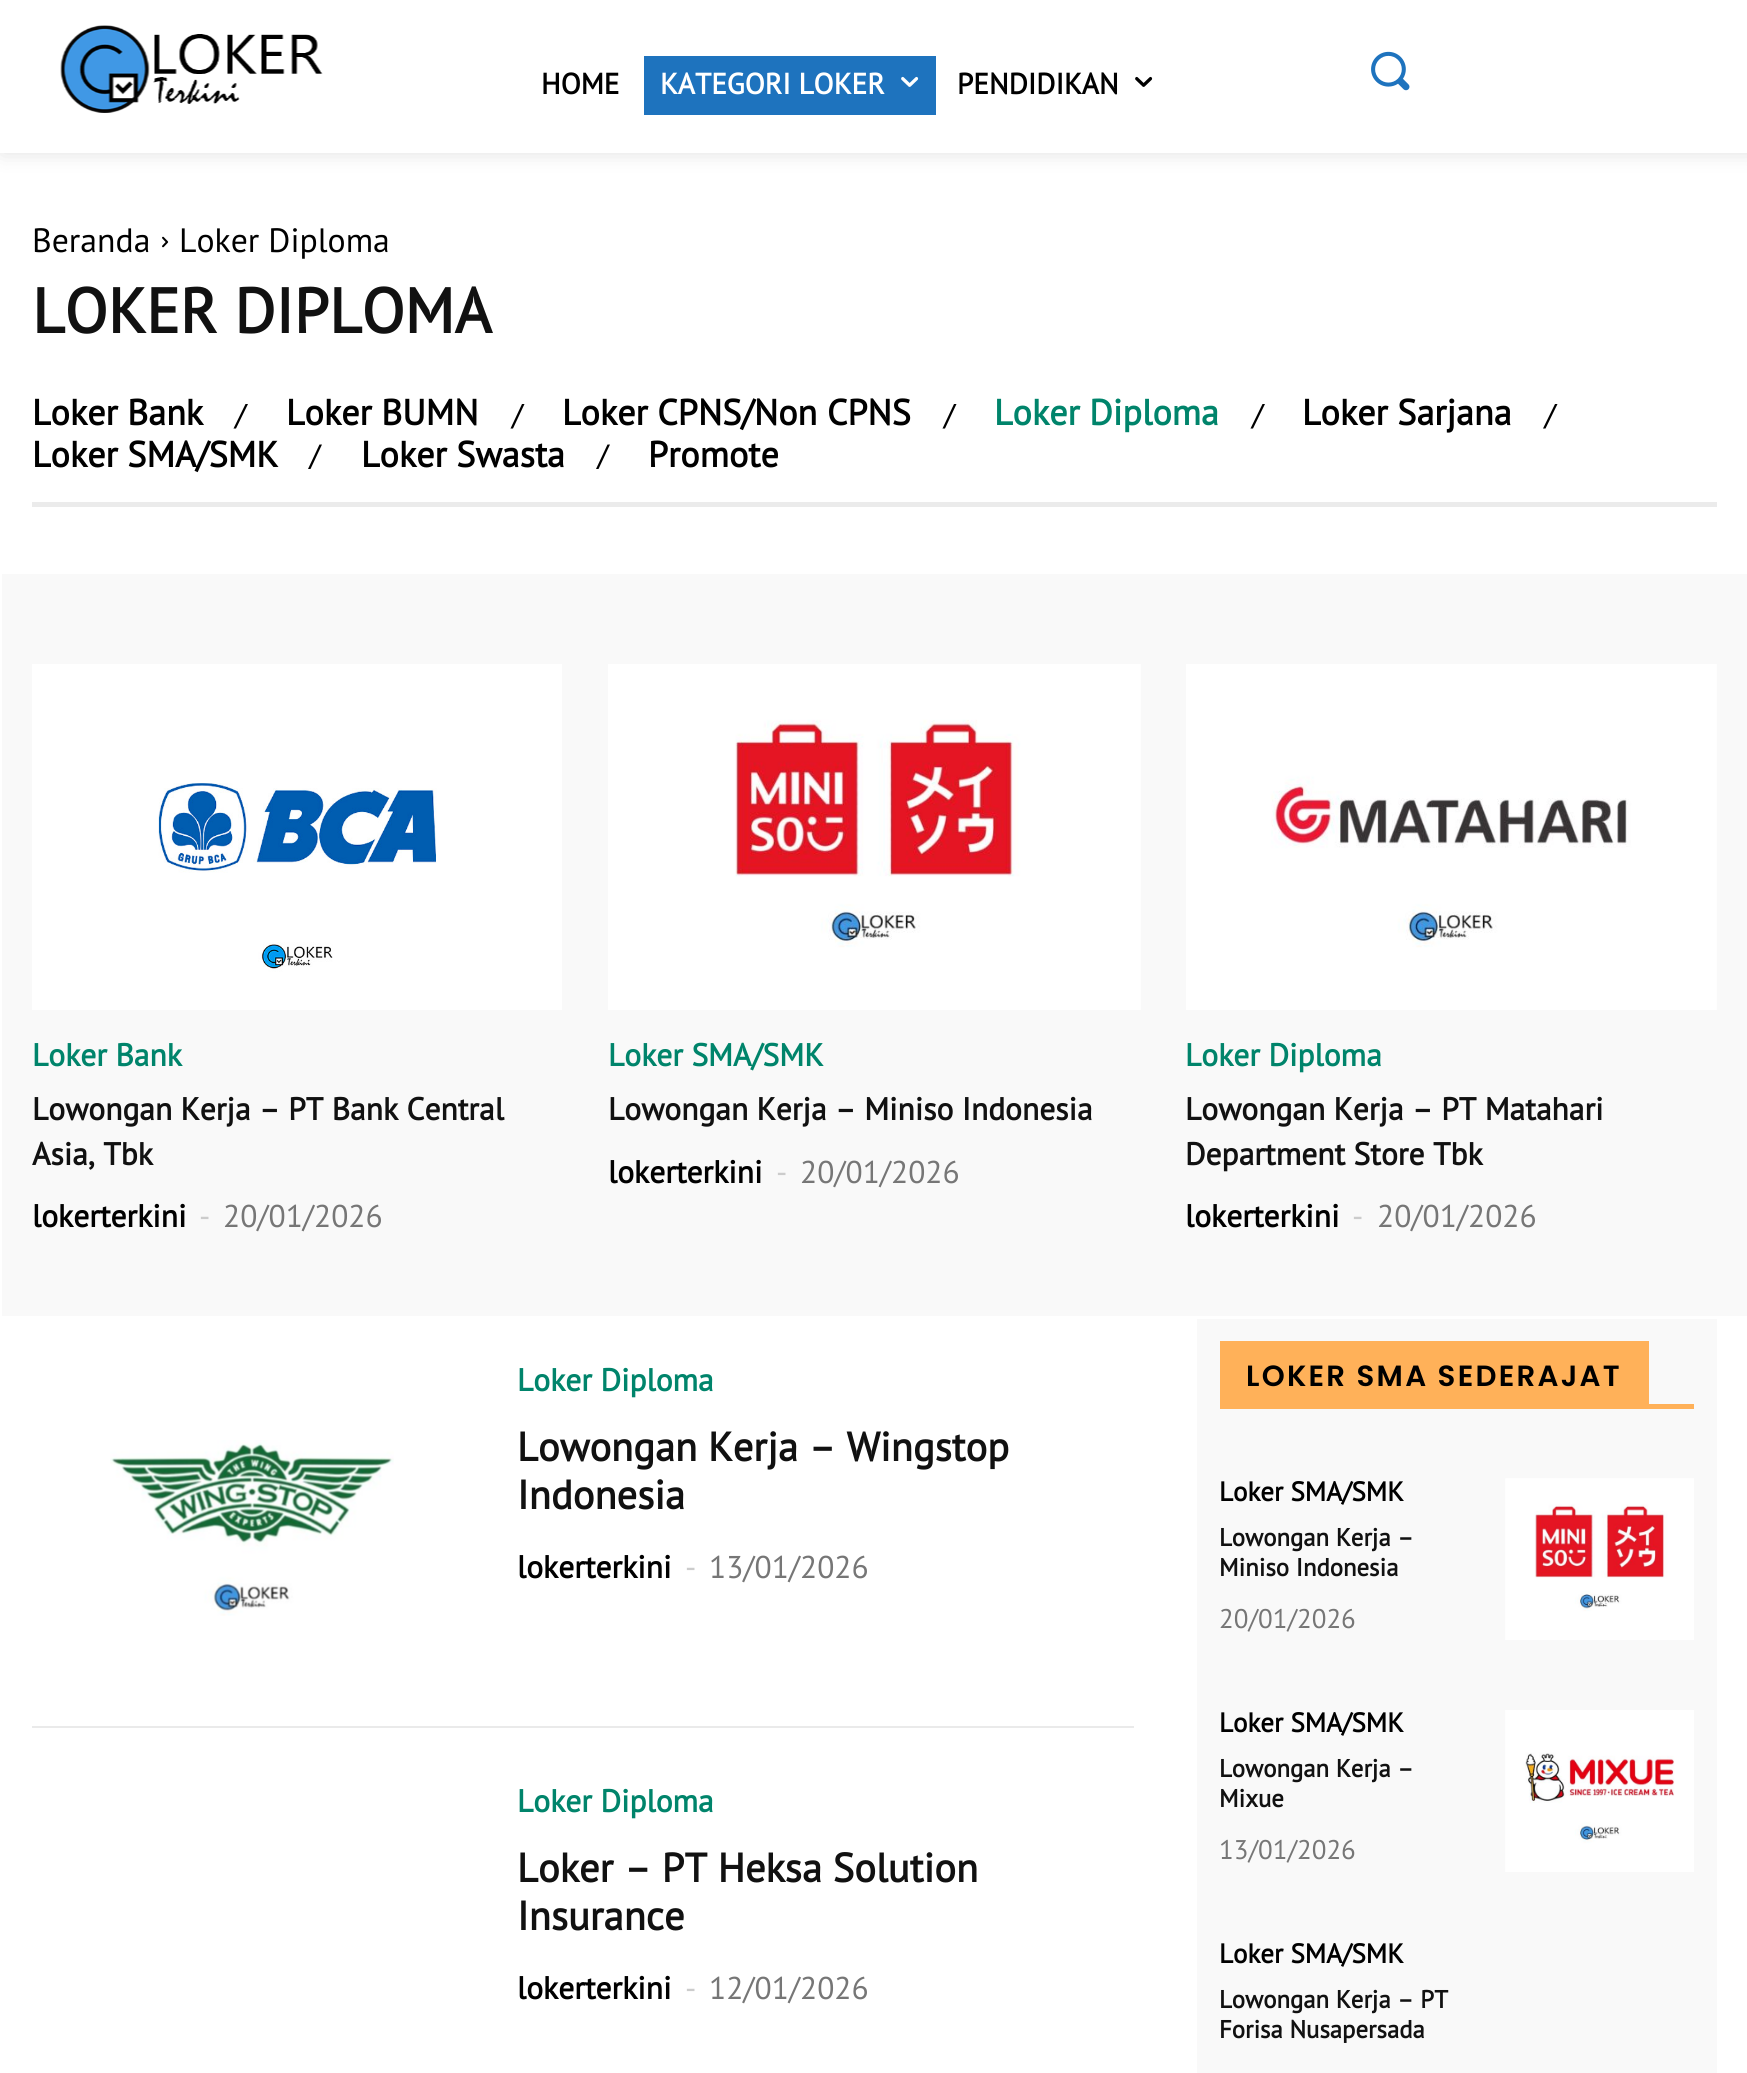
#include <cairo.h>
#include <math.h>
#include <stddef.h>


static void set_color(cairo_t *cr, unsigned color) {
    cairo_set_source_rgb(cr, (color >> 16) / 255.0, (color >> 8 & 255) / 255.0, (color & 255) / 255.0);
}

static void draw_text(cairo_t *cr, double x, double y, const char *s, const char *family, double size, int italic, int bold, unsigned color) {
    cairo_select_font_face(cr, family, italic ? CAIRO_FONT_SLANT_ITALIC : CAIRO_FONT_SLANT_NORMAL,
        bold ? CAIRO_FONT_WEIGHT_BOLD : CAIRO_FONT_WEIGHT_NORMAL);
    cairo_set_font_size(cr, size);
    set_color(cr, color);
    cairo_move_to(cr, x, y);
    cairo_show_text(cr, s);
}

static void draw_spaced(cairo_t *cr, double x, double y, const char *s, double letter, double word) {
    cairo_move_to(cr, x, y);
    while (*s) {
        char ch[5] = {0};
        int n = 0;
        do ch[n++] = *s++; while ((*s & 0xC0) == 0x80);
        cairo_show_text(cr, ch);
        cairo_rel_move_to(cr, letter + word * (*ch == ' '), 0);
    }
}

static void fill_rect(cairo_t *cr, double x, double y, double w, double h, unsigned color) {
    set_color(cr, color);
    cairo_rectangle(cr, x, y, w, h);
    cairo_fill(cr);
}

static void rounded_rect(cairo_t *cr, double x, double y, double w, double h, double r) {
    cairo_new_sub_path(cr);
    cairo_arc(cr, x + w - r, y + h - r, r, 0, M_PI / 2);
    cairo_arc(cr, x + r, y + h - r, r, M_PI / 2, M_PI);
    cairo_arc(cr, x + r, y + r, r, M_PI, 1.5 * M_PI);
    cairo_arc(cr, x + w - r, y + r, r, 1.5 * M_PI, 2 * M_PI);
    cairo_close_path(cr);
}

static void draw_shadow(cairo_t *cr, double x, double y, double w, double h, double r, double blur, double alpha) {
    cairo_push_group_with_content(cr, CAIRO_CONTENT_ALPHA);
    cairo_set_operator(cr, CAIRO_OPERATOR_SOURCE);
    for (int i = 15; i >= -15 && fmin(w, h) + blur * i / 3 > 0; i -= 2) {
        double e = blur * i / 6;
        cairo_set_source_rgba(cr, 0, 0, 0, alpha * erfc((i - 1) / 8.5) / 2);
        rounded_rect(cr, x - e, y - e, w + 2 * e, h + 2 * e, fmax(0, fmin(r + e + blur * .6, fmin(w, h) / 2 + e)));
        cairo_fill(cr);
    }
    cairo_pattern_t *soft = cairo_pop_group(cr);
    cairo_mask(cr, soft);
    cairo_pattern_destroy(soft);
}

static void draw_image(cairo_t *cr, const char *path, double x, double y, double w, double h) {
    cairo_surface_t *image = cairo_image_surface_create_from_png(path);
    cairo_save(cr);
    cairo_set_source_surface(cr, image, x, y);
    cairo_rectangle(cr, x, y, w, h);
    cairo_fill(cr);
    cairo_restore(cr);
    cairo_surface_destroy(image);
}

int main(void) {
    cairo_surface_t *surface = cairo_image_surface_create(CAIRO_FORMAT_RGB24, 1747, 2073);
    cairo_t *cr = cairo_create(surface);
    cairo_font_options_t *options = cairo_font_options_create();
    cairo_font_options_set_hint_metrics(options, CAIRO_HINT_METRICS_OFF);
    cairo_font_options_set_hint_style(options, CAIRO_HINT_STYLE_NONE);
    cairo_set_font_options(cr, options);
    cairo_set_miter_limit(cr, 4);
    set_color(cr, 0xFFFFFF);
    cairo_paint(cr);
    set_color(cr, 0x000000);
    draw_shadow(cr, 2, 0, 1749, 153, 0, 11, 0.12);
    fill_rect(cr, 0, 0, 1747, 153, 0xFFFFFF);
    draw_image(cr, "assets/img1.png", 60, 25, 263, 88);
    draw_text(cr, 541, 94, "HOME", "PT Sans", 29.25, 0, 1, 0x000000);
    fill_rect(cr, 644, 56, 292, 59, 0x1E73BE);
    draw_text(cr, 660, 94, "KATEGORI LOKER", "PT Sans", 29.25, 0, 1, 0xFFFFFF);
    draw_image(cr, "assets/img2.png", 901, 76, 18, 11);
    draw_text(cr, 957, 94, "PENDIDIKAN", "PT Sans", 29.25, 0, 1, 0x000000);
    draw_image(cr, "assets/img3.png", 1135, 76, 18, 11);
    draw_image(cr, "assets/img4.png", 1371, 51, 39, 40);
    draw_text(cr, 32, 252, "Beranda", "PT Sans", 33.75, 0, 0, 0x000000);
    draw_image(cr, "assets/img5.png", 162, 236, 7, 12);
    draw_text(cr, 179, 252, "Loker Diploma", "PT Sans", 33.75, 0, 0, 0x000000);
    draw_text(cr, 32, 333, "LOKER DIPLOMA", "PT Sans", 63, 0, 1, 0x111111);
    draw_text(cr, 32, 425, "Loker Bank", "PT Sans", 36, 0, 1, 0x000000);
    cairo_new_path(cr);
    cairo_move_to(cr, 245.5, 404);
    cairo_line_to(cr, 233.5, 428.5);
    cairo_line_to(cr, 236, 428.5);
    cairo_line_to(cr, 248, 404);
    cairo_close_path(cr);
    cairo_fill(cr);
    draw_text(cr, 286, 425, "Loker BUMN", "PT Sans", 36, 0, 1, 0x000000);
    cairo_new_path(cr);
    cairo_move_to(cr, 522, 404);
    cairo_line_to(cr, 510.5, 428.5);
    cairo_line_to(cr, 513, 428.5);
    cairo_line_to(cr, 524.5, 404);
    cairo_close_path(cr);
    cairo_fill(cr);
    draw_text(cr, 562, 425, "Loker CPNS/Non CPNS", "PT Sans", 36, 0, 1, 0x000000);
    cairo_new_path(cr);
    cairo_move_to(cr, 954, 404);
    cairo_line_to(cr, 942.5, 428.5);
    cairo_line_to(cr, 945, 428.5);
    cairo_line_to(cr, 956.5, 404);
    cairo_close_path(cr);
    cairo_fill(cr);
    draw_text(cr, 994, 425, "Loker Diploma", "PT Sans", 36, 0, 1, 0x00846B);
    set_color(cr, 0x000000);
    cairo_new_path(cr);
    cairo_move_to(cr, 1262.5, 404);
    cairo_line_to(cr, 1250.5, 428.5);
    cairo_line_to(cr, 1253, 428.5);
    cairo_line_to(cr, 1265, 404);
    cairo_close_path(cr);
    cairo_fill(cr);
    draw_text(cr, 1302, 425, "Loker Sarjana", "PT Sans", 36, 0, 1, 0x000000);
    cairo_new_path(cr);
    cairo_move_to(cr, 1555, 404);
    cairo_line_to(cr, 1543, 428.5);
    cairo_line_to(cr, 1545.5, 428.5);
    cairo_line_to(cr, 1557.5, 404);
    cairo_close_path(cr);
    cairo_fill(cr);
    draw_text(cr, 32, 467, "Loker SMA/SMK", "PT Sans", 36, 0, 1, 0x000000);
    cairo_new_path(cr);
    cairo_move_to(cr, 319.5, 444.5);
    cairo_line_to(cr, 308, 469);
    cairo_line_to(cr, 310.5, 469);
    cairo_line_to(cr, 322, 444.5);
    cairo_close_path(cr);
    cairo_fill(cr);
    draw_text(cr, 361, 467, "Loker Swasta", "PT Sans", 36, 0, 1, 0x000000);
    cairo_new_path(cr);
    cairo_move_to(cr, 607.5, 444.5);
    cairo_line_to(cr, 596, 469);
    cairo_line_to(cr, 598.5, 469);
    cairo_line_to(cr, 610, 444.5);
    cairo_close_path(cr);
    cairo_fill(cr);
    draw_text(cr, 648, 467, "Promote", "PT Sans", 36, 0, 1, 0x000000);
    fill_rect(cr, 32, 502, 1685, 5, 0xEBEBEB);
    fill_rect(cr, 2, 574, 1745, 742, 0xF9F9F9);
    draw_image(cr, "assets/img6.png", 32, 664, 530, 346);
    draw_text(cr, 32, 1066, "Loker Bank", "PT Sans", 31.5, 0, 1, 0x00846B);
    draw_text(cr, 32, 1120, "Lowongan Kerja – PT Bank Central", "PT Sans", 31.5, 0, 1, 0x111111);
    draw_text(cr, 32, 1165, "Asia, Tbk", "PT Sans", 31.5, 0, 1, 0x111111);
    draw_text(cr, 32, 1227, "lokerterkini", "PT Sans", 31.5, 0, 1, 0x000000);
    draw_text(cr, 199, 1227, "-", "PT Sans", 31.5, 0, 0, 0xCCCCCC);
    draw_text(cr, 223, 1227, "20/01/2026", "PT Sans", 31.5, 0, 0, 0x767676);
    draw_image(cr, "assets/img7.png", 608, 664, 533, 346);
    draw_text(cr, 608, 1066, "Loker SMA/SMK", "PT Sans", 31.5, 0, 1, 0x00846B);
    draw_text(cr, 608, 1120, "Lowongan Kerja – Miniso Indonesia", "PT Sans", 31.5, 0, 1, 0x111111);
    draw_text(cr, 608, 1183, "lokerterkini", "PT Sans", 31.5, 0, 1, 0x000000);
    draw_text(cr, 776, 1183, "-", "PT Sans", 31.5, 0, 0, 0xCCCCCC);
    draw_text(cr, 800, 1183, "20/01/2026", "PT Sans", 31.5, 0, 0, 0x767676);
    draw_image(cr, "assets/img8.png", 1186, 664, 531, 346);
    draw_text(cr, 1185, 1066, "Loker Diploma", "PT Sans", 31.5, 0, 1, 0x00846B);
    draw_text(cr, 1185, 1120, "Lowongan Kerja – PT Matahari", "PT Sans", 31.5, 0, 1, 0x111111);
    draw_text(cr, 1185, 1165, "Department Store Tbk", "PT Sans", 31.5, 0, 1, 0x111111);
    draw_text(cr, 1185, 1227, "lokerterkini", "PT Sans", 31.5, 0, 1, 0x000000);
    draw_text(cr, 1352, 1227, "-", "PT Sans", 31.5, 0, 0, 0xCCCCCC);
    draw_text(cr, 1377, 1227, "20/01/2026", "PT Sans", 31.5, 0, 0, 0x767676);
    draw_image(cr, "assets/img9.png", 110, 1440, 284, 176);
    draw_text(cr, 517, 1391, "Loker Diploma", "PT Sans", 31.5, 0, 1, 0x00846B);
    draw_text(cr, 517, 1461, "Lowongan Kerja – Wingstop", "PT Sans", 40.5, 0, 1, 0x111111);
    draw_text(cr, 517, 1509, "Indonesia", "PT Sans", 40.5, 0, 1, 0x111111);
    draw_text(cr, 517, 1578, "lokerterkini", "PT Sans", 31.5, 0, 1, 0x000000);
    draw_text(cr, 685, 1578, "-", "PT Sans", 31.5, 0, 0, 0xCCCCCC);
    draw_text(cr, 709, 1578, "13/01/2026", "PT Sans", 31.5, 0, 0, 0x767676);
    fill_rect(cr, 32, 1726, 1102, 2, 0xEAEAEA);
    draw_text(cr, 517, 1812, "Loker Diploma", "PT Sans", 31.5, 0, 1, 0x00846B);
    draw_text(cr, 517, 1882, "Loker – PT Heksa Solution", "PT Sans", 40.5, 0, 1, 0x111111);
    draw_text(cr, 517, 1930, "Insurance", "PT Sans", 40.5, 0, 1, 0x111111);
    draw_text(cr, 517, 1999, "lokerterkini", "PT Sans", 31.5, 0, 1, 0x000000);
    draw_text(cr, 685, 1999, "-", "PT Sans", 31.5, 0, 0, 0xCCCCCC);
    draw_text(cr, 709, 1999, "12/01/2026", "PT Sans", 31.5, 0, 0, 0x767676);
    fill_rect(cr, 1197, 1319, 520, 754, 0xF9F9F9);
    fill_rect(cr, 1220, 1404, 474, 5, 0xFFB159);
    fill_rect(cr, 1220, 1341, 429, 63, 0xFFB159);
    cairo_select_font_face(cr, "Poppins SemiBold", CAIRO_FONT_SLANT_NORMAL, CAIRO_FONT_WEIGHT_NORMAL);
    cairo_set_font_size(cr, 29.25);
    set_color(cr, 0x000000);
    draw_spaced(cr, 1246, 1386, "LOKER SMA SEDERAJAT", 2.25, 0);
    draw_text(cr, 1219, 1501, "Loker SMA/SMK", "PT Sans", 27, 0, 1, 0x000000);
    draw_text(cr, 1219, 1546, "Lowongan Kerja –", "PT Sans", 24.75, 0, 1, 0x111111);
    draw_text(cr, 1219, 1576, "Miniso Indonesia", "PT Sans", 24.75, 0, 1, 0x111111);
    draw_text(cr, 1219, 1628, "20/01/2026", "PT Sans", 27, 0, 0, 0x767676);
    draw_image(cr, "assets/img10.png", 1505, 1478, 189, 162);
    draw_text(cr, 1219, 1732, "Loker SMA/SMK", "PT Sans", 27, 0, 1, 0x000000);
    draw_text(cr, 1219, 1777, "Lowongan Kerja –", "PT Sans", 24.75, 0, 1, 0x111111);
    draw_text(cr, 1219, 1807, "Mixue", "PT Sans", 24.75, 0, 1, 0x111111);
    draw_text(cr, 1219, 1859, "13/01/2026", "PT Sans", 27, 0, 0, 0x767676);
    draw_image(cr, "assets/img11.png", 1505, 1710, 189, 162);
    draw_text(cr, 1219, 1963, "Loker SMA/SMK", "PT Sans", 27, 0, 1, 0x000000);
    draw_text(cr, 1219, 2008, "Lowongan Kerja – PT", "PT Sans", 24.75, 0, 1, 0x111111);
    draw_text(cr, 1219, 2038, "Forisa Nusapersada", "PT Sans", 24.75, 0, 1, 0x111111);
    cairo_surface_write_to_png(surface, "output.png");
    cairo_font_options_destroy(options);
    cairo_destroy(cr);
    cairo_surface_destroy(surface);
    return 0;
}
